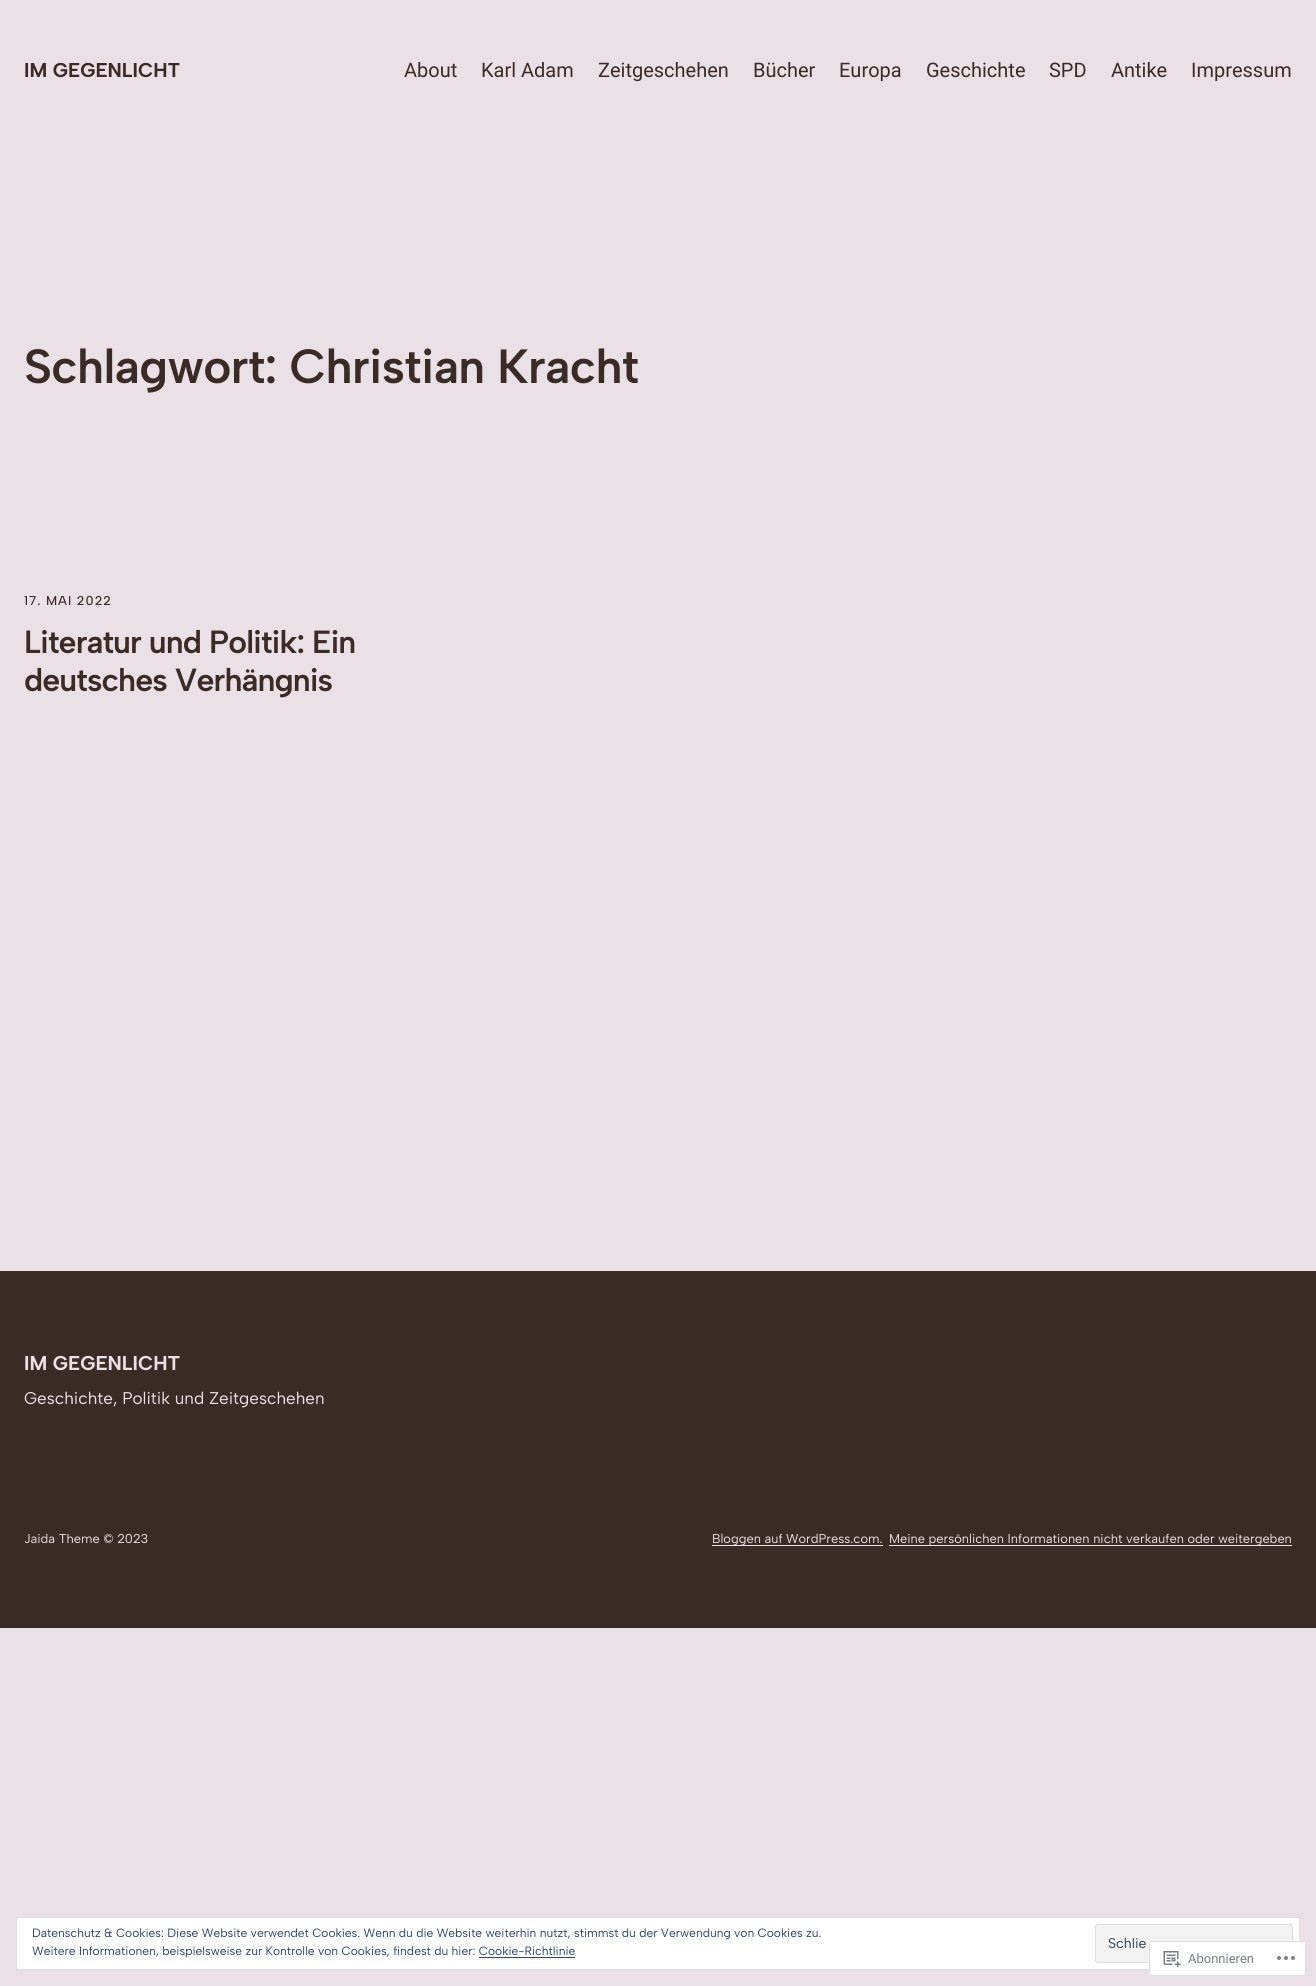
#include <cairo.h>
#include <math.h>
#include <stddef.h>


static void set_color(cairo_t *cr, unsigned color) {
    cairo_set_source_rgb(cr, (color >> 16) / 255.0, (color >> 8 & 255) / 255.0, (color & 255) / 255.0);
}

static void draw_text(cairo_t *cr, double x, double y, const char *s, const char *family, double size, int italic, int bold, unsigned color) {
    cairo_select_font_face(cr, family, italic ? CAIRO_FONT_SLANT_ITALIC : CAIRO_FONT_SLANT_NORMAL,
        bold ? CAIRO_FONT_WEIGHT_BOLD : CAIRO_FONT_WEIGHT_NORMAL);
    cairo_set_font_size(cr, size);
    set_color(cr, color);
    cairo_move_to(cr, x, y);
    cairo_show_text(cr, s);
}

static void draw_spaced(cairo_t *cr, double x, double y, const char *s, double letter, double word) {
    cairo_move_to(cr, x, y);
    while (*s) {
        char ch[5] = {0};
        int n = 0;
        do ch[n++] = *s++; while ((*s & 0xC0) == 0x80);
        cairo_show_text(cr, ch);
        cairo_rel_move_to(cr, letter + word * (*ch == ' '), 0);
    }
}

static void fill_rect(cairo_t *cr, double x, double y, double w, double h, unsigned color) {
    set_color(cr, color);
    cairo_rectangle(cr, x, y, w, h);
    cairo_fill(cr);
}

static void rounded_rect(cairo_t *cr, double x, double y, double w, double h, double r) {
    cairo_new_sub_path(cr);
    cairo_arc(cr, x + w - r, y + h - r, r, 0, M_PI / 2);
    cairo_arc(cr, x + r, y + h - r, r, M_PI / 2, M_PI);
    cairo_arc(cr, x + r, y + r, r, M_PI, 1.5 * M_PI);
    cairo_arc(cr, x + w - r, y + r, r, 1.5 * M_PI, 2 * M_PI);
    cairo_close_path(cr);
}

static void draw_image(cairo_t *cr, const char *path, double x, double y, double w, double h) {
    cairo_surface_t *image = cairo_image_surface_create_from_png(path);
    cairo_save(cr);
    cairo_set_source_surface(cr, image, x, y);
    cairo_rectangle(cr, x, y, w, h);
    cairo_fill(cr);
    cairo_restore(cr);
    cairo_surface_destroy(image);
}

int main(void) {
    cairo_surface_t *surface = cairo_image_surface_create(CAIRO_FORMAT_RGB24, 1316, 1986);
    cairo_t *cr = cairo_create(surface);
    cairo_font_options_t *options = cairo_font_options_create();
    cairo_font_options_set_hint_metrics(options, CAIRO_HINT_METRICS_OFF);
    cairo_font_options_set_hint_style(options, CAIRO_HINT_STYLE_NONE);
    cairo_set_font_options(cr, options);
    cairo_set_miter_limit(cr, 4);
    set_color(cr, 0xE9E1E5);
    cairo_paint(cr);
    draw_text(cr, 24, 77, "IM GEGENLICHT", "Albert Sans", 20, 0, 1, 0x3B2B27);
    draw_text(cr, 404, 77, "About", "Roboto", 20, 0, 0, 0x3B2B27);
    draw_text(cr, 481, 77, "Karl Adam", "Roboto", 20, 0, 0, 0x3B2B27);
    draw_text(cr, 598, 77, "Zeitgeschehen", "Roboto", 20, 0, 0, 0x3B2B27);
    draw_text(cr, 753, 77, "Bücher", "Roboto", 20, 0, 0, 0x3B2B27);
    draw_text(cr, 839, 77, "Europa", "Roboto", 20, 0, 0, 0x3B2B27);
    draw_text(cr, 926, 77, "Geschichte", "Roboto", 20, 0, 0, 0x3B2B27);
    draw_text(cr, 1049, 77, "SPD", "Roboto", 20, 0, 0, 0x3B2B27);
    draw_text(cr, 1111, 77, "Antike", "Roboto", 20, 0, 0, 0x3B2B27);
    draw_text(cr, 1191, 77, "Impressum", "Roboto", 20, 0, 0, 0x3B2B27);
    cairo_select_font_face(cr, "Albert Sans SemiBold", CAIRO_FONT_SLANT_NORMAL, CAIRO_FONT_WEIGHT_NORMAL);
    cairo_set_font_size(cr, 48);
    draw_spaced(cr, 24, 383, "Schlagwort: Christian Kracht", -0.65, 0);
    cairo_select_font_face(cr, "Albert Sans Medium", CAIRO_FONT_SLANT_NORMAL, CAIRO_FONT_WEIGHT_NORMAL);
    cairo_set_font_size(cr, 12.8);
    draw_spaced(cr, 24, 605, "17. MAI 2022", 1, 0);
    cairo_select_font_face(cr, "Albert Sans SemiBold", CAIRO_FONT_SLANT_NORMAL, CAIRO_FONT_WEIGHT_NORMAL);
    cairo_set_font_size(cr, 32);
    draw_spaced(cr, 24, 653, "Literatur und Politik: Ein", -0.95, 0);
    draw_spaced(cr, 24, 691, "deutsches Verhängnis", -0.95, 0);
    fill_rect(cr, 0, 1271, 1316, 357, 0x3B2B27);
    draw_text(cr, 24, 1370, "IM GEGENLICHT", "Albert Sans", 20, 0, 1, 0xE9E1E5);
    draw_text(cr, 24, 1404, "Geschichte, Politik und Zeitgeschehen", "Albert Sans", 17, 0, 0, 0xE9E1E5);
    draw_text(cr, 24, 1543, "Jaida Theme © 2023", "Albert Sans", 12.8, 0, 0, 0xE9E1E5);
    fill_rect(cr, 712, 1545, 171, 1, 0xE9E1E5);
    draw_text(cr, 712, 1543, "Bloggen auf WordPress.com.", "Albert Sans", 12.8, 0, 0, 0xE9E1E5);
    fill_rect(cr, 889, 1545, 403, 1, 0xE9E1E5);
    draw_text(cr, 889, 1543, "Meine persönlichen Informationen nicht verkaufen oder weitergeben", "Albert Sans", 12.8, 0, 0, 0xE9E1E5);
    set_color(cr, 0xFFFFFF);
    cairo_rectangle(cr, 16.5, 1917.5, 1283, 52);
    cairo_fill_preserve(cr);
    set_color(cr, 0xDEDEDE);
    cairo_set_line_width(cr, 1);
    cairo_stroke(cr);
    draw_text(cr, 32, 1937, "Datenschutz & Cookies: Diese Website verwendet Cookies. Wenn du die Website weiterhin nutzt, stimmst du der Verwendung von Cookies zu.", "Albert Sans", 12, 0, 0, 0x2E4467);
    set_color(cr, 0xF3F3F3);
    rounded_rect(cr, 1095.5, 1924.5, 197, 38, 2.5);
    cairo_fill_preserve(cr);
    set_color(cr, 0xDEDEDE);
    cairo_stroke(cr);
    draw_text(cr, 1108, 1948, "Schlie", "Albert Sans", 14, 0, 0, 0x2E4453);
    draw_text(cr, 32, 1955, "Weitere Informationen, beispielsweise zur Kontrolle von Cookies, findest du hier: Cookie-Richtlinie", "Albert Sans", 12, 0, 0, 0x2E4467);
    fill_rect(cr, 479, 1957, 96, 1, 0x2E4467);
    cairo_set_source_rgba(cr, 1, 1, 1, 0.98);
    rounded_rect(cr, 1149, 1941, 157, 35, 3);
    cairo_fill(cr);
    rounded_rect(cr, 1149.5, 1941.5, 156, 34, 2.5);
    cairo_set_source_rgba(cr, 0.863, 0.863, 0.871, 0.98);
    cairo_stroke(cr);
    draw_image(cr, "assets/img1.png", 1163, 1951, 18, 17);
    draw_text(cr, 1188, 1963, "Abonnieren", "Roboto", 13, 0, 0, 0x7B7F84);
    draw_image(cr, "assets/img2.png", 1277, 1956, 18, 4);
    cairo_surface_write_to_png(surface, "output.png");
    cairo_font_options_destroy(options);
    cairo_destroy(cr);
    cairo_surface_destroy(surface);
    return 0;
}
